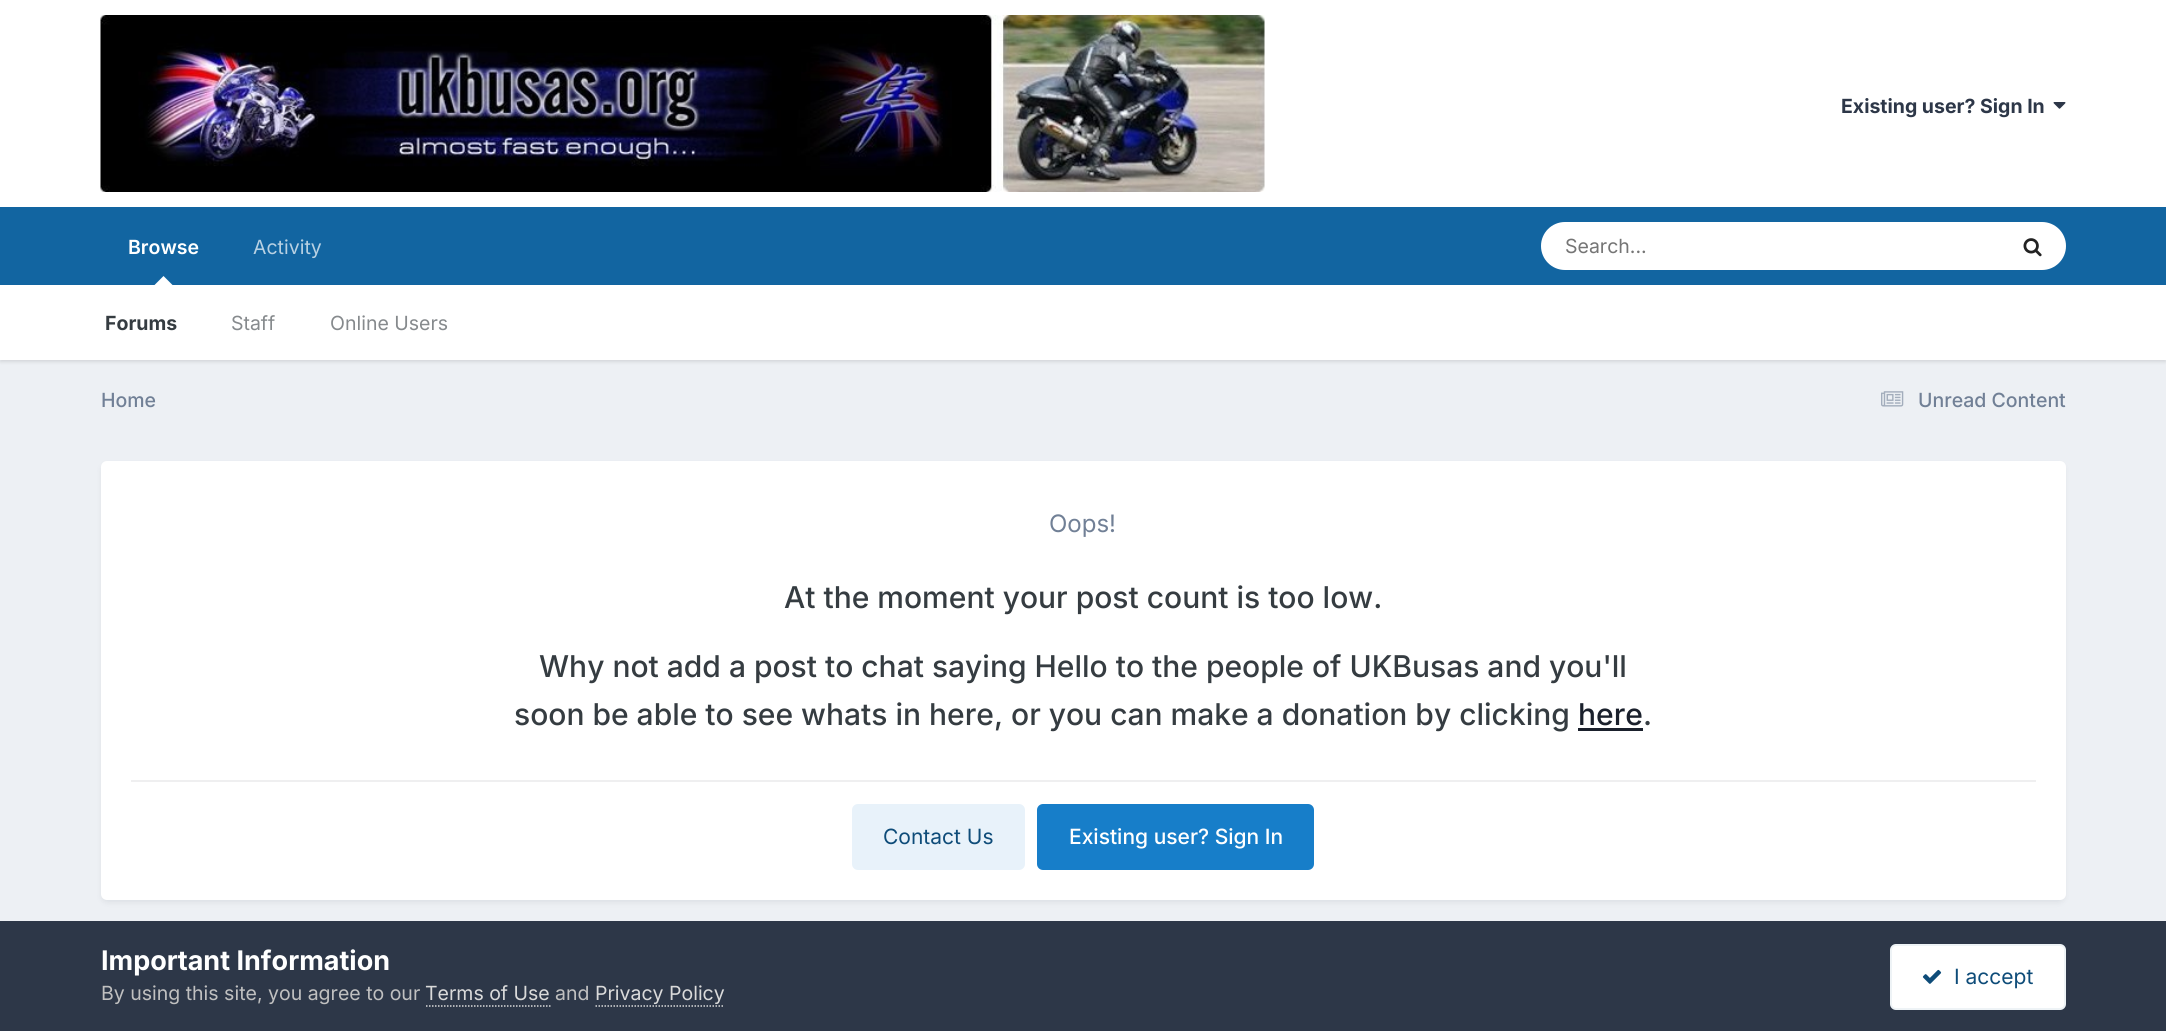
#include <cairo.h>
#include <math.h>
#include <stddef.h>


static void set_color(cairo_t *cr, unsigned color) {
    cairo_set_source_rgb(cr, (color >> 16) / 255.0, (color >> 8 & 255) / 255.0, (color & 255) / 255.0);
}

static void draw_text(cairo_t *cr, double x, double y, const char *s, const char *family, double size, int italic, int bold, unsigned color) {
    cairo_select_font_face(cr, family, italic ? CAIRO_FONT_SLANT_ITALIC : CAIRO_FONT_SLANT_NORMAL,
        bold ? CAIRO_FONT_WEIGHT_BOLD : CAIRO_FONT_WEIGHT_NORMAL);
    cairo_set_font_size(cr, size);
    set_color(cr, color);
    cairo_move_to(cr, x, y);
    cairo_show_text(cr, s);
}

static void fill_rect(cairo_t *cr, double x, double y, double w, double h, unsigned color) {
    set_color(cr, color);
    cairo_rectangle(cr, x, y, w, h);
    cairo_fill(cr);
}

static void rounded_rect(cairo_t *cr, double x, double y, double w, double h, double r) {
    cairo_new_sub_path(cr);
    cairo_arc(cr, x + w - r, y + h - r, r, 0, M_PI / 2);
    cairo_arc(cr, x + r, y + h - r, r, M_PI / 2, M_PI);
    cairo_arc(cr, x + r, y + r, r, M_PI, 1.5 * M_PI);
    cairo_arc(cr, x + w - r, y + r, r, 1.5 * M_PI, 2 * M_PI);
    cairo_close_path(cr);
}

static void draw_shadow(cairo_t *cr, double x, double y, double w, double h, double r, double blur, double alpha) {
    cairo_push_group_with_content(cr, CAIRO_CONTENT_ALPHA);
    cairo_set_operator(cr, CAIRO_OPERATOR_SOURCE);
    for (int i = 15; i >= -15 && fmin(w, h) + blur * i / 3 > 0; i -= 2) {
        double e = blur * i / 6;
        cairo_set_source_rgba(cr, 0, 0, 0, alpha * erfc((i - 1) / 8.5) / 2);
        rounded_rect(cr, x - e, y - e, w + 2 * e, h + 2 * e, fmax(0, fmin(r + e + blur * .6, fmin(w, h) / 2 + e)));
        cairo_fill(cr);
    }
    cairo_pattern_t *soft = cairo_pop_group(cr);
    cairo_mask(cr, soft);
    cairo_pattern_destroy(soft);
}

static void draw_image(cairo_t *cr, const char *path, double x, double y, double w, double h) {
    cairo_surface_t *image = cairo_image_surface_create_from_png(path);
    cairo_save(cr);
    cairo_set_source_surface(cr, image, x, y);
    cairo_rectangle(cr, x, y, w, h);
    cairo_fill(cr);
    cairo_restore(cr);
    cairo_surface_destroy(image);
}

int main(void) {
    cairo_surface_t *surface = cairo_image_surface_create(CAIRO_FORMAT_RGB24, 2166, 1031);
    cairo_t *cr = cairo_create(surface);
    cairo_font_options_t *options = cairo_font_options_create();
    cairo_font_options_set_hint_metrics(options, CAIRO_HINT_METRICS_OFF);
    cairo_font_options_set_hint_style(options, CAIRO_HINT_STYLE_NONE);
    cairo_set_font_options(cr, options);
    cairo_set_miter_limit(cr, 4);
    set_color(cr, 0xEDF0F4);
    cairo_paint(cr);
    fill_rect(cr, 0, 0, 2166, 207, 0xFFFFFF);
    draw_image(cr, "assets/img1.png", 100, 15, 1165, 177);
    draw_text(cr, 1841, 113, "Existing user? Sign In", "Inter", 19.5, 0, 1, 0x2D3748);
    draw_image(cr, "assets/img2.png", 2053, 102, 13, 7);
    fill_rect(cr, 0, 207, 2166, 78, 0x1265A1);
    draw_text(cr, 128, 254, "Browse", "Inter SemiBold", 19.5, 0, 0, 0xFFFFFF);
    set_color(cr, 0x000000);
    draw_shadow(cr, 0, 287, 2166, 75, 0, 1.5, 0.1);
    set_color(cr, 0xFFFFFF);
    cairo_new_path(cr);
    cairo_move_to(cr, 172.5, 285);
    cairo_line_to(cr, 154.5, 285);
    cairo_line_to(cr, 163.5, 276);
    cairo_close_path(cr);
    cairo_fill(cr);
    fill_rect(cr, 0, 285, 2166, 75, 0xFFFFFF);
    draw_text(cr, 105, 330, "Forums", "Inter", 19.5, 0, 1, 0x353C41);
    draw_text(cr, 231, 330, "Staff", "Inter", 19.5, 0, 0, 0x868A8D);
    draw_text(cr, 330, 330, "Online Users", "Inter", 19.5, 0, 0, 0x868A8D);
    draw_text(cr, 253, 254, "Activity", "Inter", 19.5, 0, 0, 0xB8D1E3);
    set_color(cr, 0xFFFFFF);
    rounded_rect(cr, 1541, 222, 525, 48, 24);
    cairo_fill(cr);
    draw_text(cr, 1565, 253, "Search...", "Inter", 19.5, 0, 0, 0x757575);
    draw_image(cr, "assets/img3.png", 2023, 238, 19, 19);
    draw_text(cr, 101, 407, "Home", "Inter Medium", 19.5, 0, 0, 0x718096);
    draw_image(cr, "assets/img4.png", 1881, 391, 23, 16);
    draw_text(cr, 1918, 407, "Unread Content", "Inter Medium", 19.5, 0, 0, 0x718096);
    set_color(cr, 0x2D3748);
    draw_shadow(cr, 102, 465, 1962, 437, 5, 3, 0.1);
    set_color(cr, 0xFFFFFF);
    rounded_rect(cr, 101, 461, 1965, 439, 6);
    cairo_fill(cr);
    draw_text(cr, 1049, 532, "Oops!", "Inter", 24, 0, 0, 0x718096);
    draw_text(cr, 784, 608, "At the moment your post count is too low.", "Inter Medium", 30, 0, 0, 0x353C41);
    draw_text(cr, 539, 677, "Why not add a post to chat saying Hello to the people of UKBusas and you'll", "Inter Medium", 30, 0, 0, 0x353C41);
    draw_text(cr, 514, 725, "soon be able to see whats in here, or you can make a donation by clicking", "Inter Medium", 30, 0, 0, 0x353C41);
    draw_text(cr, 1578, 725, "here", "Inter Medium", 30, 0, 0, 0x1A202C);
    draw_text(cr, 1643, 725, ".", "Inter Medium", 30, 0, 0, 0x353C41);
    fill_rect(cr, 1578, 728, 65, 3, 0x1A202C);
    fill_rect(cr, 131, 780, 1905, 2, 0xEFEFF0);
    set_color(cr, 0xE8F2FA);
    rounded_rect(cr, 852, 804, 173, 66, 6);
    cairo_fill(cr);
    draw_text(cr, 883, 844, "Contact Us", "Inter", 21, 0, 0, 0x0E4C79);
    set_color(cr, 0x177EC9);
    rounded_rect(cr, 1037, 804, 277, 66, 6);
    cairo_fill(cr);
    draw_text(cr, 1069, 844, "Existing user? Sign In", "Inter Medium", 21, 0, 0, 0xFFFFFF);
    fill_rect(cr, 0, 921, 2166, 110, 0x2D3748);
    draw_text(cr, 101, 970, "Important Information", "Inter", 27, 0, 1, 0xFFFFFF);
    draw_text(cr, 101, 1000, "By using this site, you agree to our", "Inter", 19.5, 0, 0, 0xC0C0C0);
    draw_text(cr, 425, 1000, "Terms of Use", "Inter", 19.5, 0, 0, 0xDADADA);
    cairo_new_path(cr);
    cairo_move_to(cr, 426, 1006);
    cairo_line_to(cr, 550.5, 1006);
    cairo_set_line_width(cr, 1.5);
    cairo_set_dash(cr, (double[]){1.5, 1.5}, 2, 0);
    cairo_stroke(cr);
    draw_text(cr, 555, 1000, "and", "Inter", 19.5, 0, 0, 0xC0C0C0);
    draw_text(cr, 595, 1000, "Privacy Policy", "Inter", 19.5, 0, 0, 0xDADADA);
    cairo_new_path(cr);
    cairo_move_to(cr, 595.5, 1006);
    cairo_line_to(cr, 724.5, 1006);
    cairo_stroke(cr);
    set_color(cr, 0xFFFFFF);
    rounded_rect(cr, 1890, 944, 176, 66, 6);
    cairo_fill(cr);
    rounded_rect(cr, 1891, 945, 174, 64, 5);
    cairo_set_source_rgba(cr, 0.055, 0.298, 0.475, 0.07);
    cairo_set_line_width(cr, 2);
    cairo_set_dash(cr, NULL, 0, 0);
    cairo_stroke(cr);
    draw_image(cr, "assets/img5.png", 1922, 969, 20, 15);
    draw_text(cr, 1954, 984, "I accept", "Inter", 21, 0, 0, 0x0E4C79);
    cairo_surface_write_to_png(surface, "output.png");
    cairo_font_options_destroy(options);
    cairo_destroy(cr);
    cairo_surface_destroy(surface);
    return 0;
}
